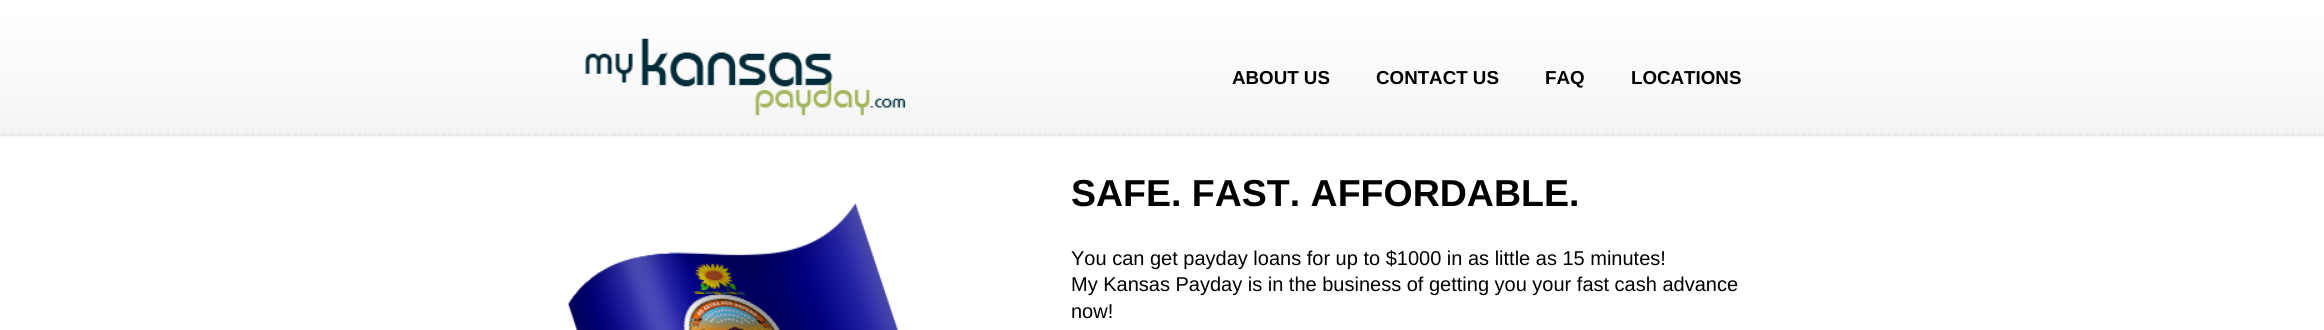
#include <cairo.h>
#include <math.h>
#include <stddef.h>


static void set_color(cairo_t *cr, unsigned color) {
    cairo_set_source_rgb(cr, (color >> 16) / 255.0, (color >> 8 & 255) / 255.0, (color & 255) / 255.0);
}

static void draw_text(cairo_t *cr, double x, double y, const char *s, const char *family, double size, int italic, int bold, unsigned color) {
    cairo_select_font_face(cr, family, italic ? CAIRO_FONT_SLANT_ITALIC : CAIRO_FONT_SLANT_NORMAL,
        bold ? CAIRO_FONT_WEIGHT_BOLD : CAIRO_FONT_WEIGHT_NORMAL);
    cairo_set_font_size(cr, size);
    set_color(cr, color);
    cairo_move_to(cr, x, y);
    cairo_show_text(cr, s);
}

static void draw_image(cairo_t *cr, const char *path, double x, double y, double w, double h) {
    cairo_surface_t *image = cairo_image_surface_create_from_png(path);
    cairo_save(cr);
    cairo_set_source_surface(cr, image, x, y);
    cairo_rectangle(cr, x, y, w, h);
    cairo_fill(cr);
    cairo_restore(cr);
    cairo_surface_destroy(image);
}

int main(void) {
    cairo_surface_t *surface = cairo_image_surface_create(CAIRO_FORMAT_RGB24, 2324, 330);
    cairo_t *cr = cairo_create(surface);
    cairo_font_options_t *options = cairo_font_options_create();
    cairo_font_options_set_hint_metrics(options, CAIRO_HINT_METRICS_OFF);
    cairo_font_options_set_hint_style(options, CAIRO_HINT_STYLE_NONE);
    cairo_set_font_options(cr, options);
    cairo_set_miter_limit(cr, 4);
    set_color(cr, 0xFFFFFF);
    cairo_paint(cr);
    draw_image(cr, "assets/img1.png", 0, 0, 2324, 330);
    draw_image(cr, "assets/img2.png", 584, 38, 322, 78);
    draw_text(cr, 1232, 84, "ABOUT US", "Liberation Sans", 18.75, 0, 1, 0x000000);
    draw_text(cr, 1376, 84, "CONTACT US", "Liberation Sans", 18.75, 0, 1, 0x000000);
    draw_text(cr, 1545, 84, "FAQ", "Liberation Sans", 18.75, 0, 1, 0x000000);
    draw_text(cr, 1631, 84, "LOCATIONS", "Liberation Sans", 18.75, 0, 1, 0x000000);
    draw_image(cr, "assets/img3.png", 567, 203, 331, 127);
    draw_text(cr, 1071, 206, "SAFE. FAST. AFFORDABLE.", "Liberation Sans", 37.5, 0, 1, 0x000000);
    draw_text(cr, 1071, 265, "You can get payday loans for up to $1000 in as little as 15 minutes!", "Liberation Sans", 20, 0, 0, 0x000000);
    draw_text(cr, 1071, 291, "My Kansas Payday is in the business of getting you your fast cash advance", "Liberation Sans", 20, 0, 0, 0x000000);
    draw_text(cr, 1071, 318, "now!", "Liberation Sans", 20, 0, 0, 0x000000);
    cairo_surface_write_to_png(surface, "output.png");
    cairo_font_options_destroy(options);
    cairo_destroy(cr);
    cairo_surface_destroy(surface);
    return 0;
}
